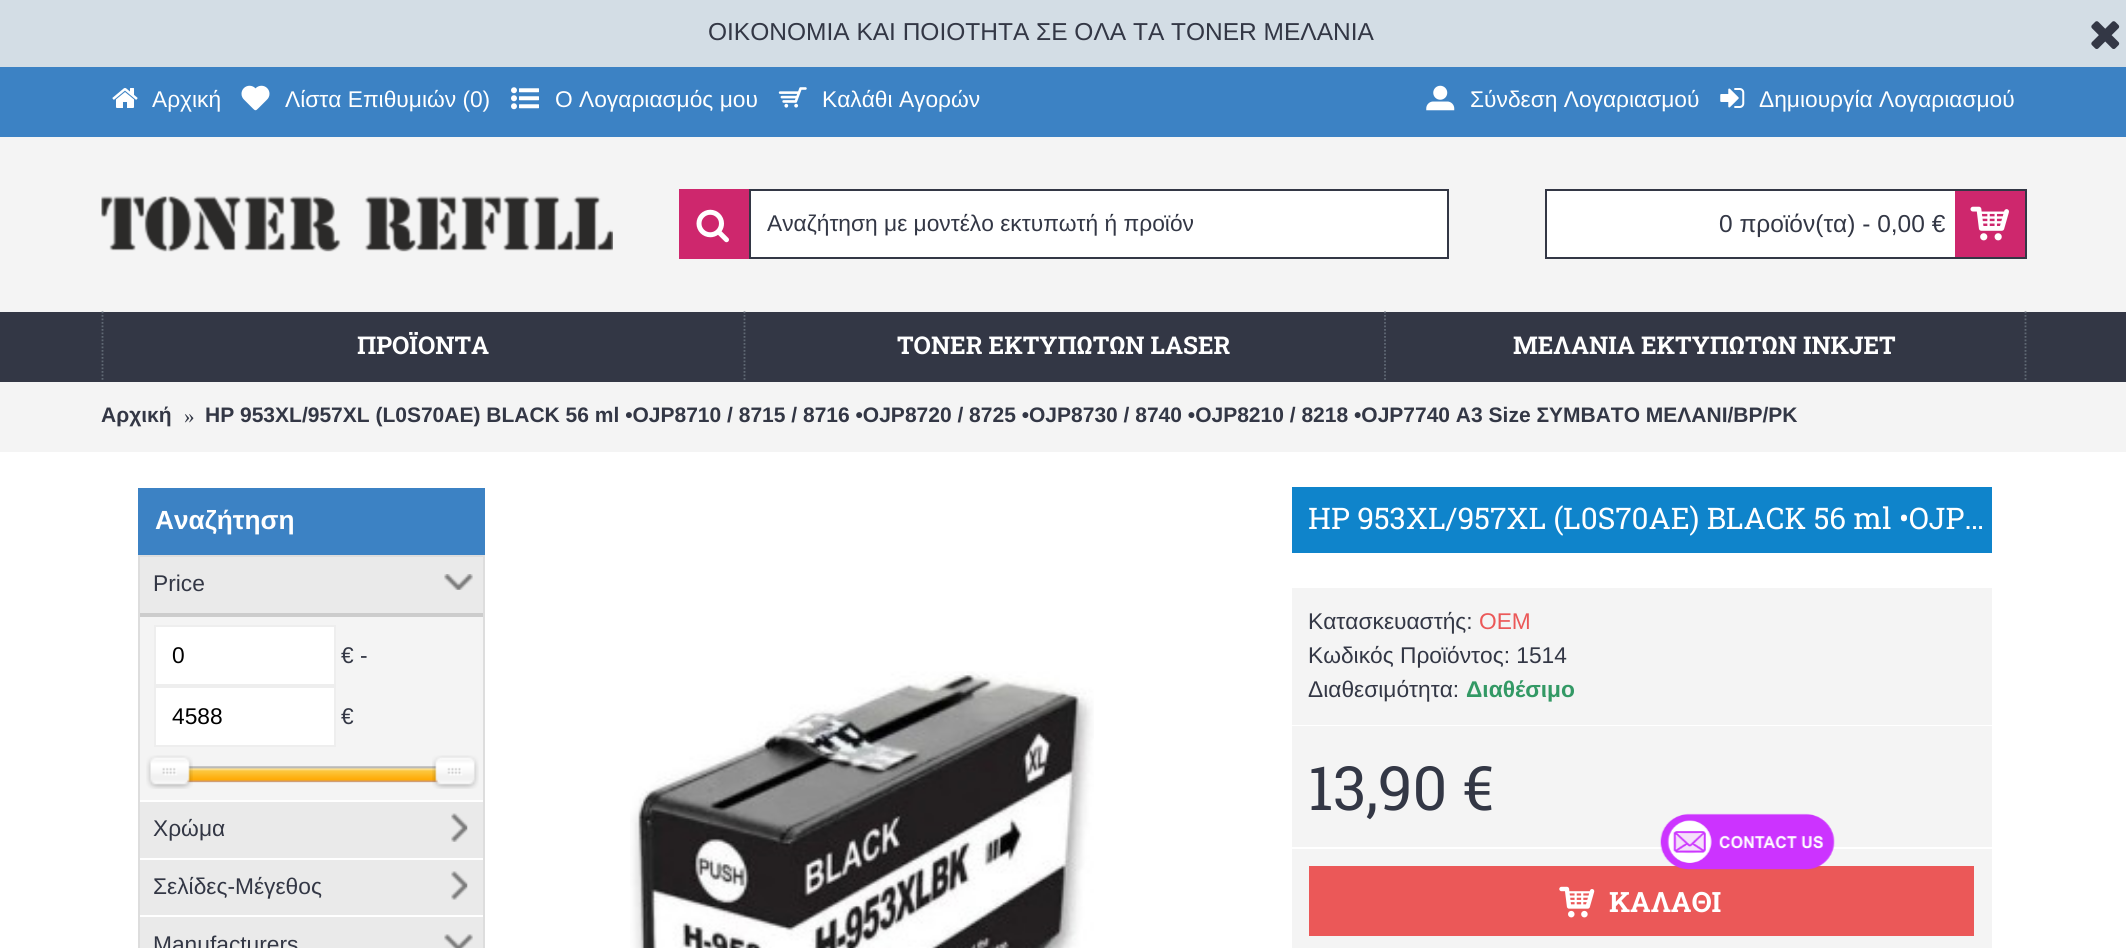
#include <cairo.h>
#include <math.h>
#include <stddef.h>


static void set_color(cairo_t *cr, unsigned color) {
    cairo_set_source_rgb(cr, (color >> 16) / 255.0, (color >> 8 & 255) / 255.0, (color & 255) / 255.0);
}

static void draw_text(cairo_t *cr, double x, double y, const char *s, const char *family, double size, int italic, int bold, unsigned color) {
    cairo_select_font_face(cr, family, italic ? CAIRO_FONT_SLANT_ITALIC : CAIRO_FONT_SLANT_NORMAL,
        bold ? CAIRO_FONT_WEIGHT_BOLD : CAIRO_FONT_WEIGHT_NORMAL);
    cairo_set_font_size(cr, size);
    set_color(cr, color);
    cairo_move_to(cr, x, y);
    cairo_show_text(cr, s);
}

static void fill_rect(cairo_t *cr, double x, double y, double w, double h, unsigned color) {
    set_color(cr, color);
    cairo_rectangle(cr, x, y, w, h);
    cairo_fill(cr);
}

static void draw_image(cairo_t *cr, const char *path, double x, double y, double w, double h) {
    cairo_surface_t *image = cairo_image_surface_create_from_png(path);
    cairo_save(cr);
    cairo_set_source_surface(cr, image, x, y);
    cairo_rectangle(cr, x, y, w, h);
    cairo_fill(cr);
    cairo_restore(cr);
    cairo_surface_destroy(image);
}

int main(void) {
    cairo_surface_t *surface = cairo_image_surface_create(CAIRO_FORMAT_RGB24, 2126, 948);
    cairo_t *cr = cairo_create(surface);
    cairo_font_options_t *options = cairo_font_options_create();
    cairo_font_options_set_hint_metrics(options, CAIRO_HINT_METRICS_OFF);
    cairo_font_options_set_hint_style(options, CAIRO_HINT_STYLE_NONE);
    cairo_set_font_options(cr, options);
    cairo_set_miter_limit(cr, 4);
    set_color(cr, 0xFFFFFF);
    cairo_paint(cr);
    fill_rect(cr, 0, 0, 2126, 67, 0xD3DDE5);
    draw_text(cr, 708, 40, "ΟΙΚΟΝΟΜΙΑ ΚΑΙ ΠΟΙΟΤΗΤΑ ΣΕ ΟΛΑ ΤΑ TONER ΜΕΛΑΝΙΑ", "Liberation Sans", 24.5, 0, 0, 0x333745);
    draw_image(cr, "assets/img1.png", 2091, 21, 29, 28);
    fill_rect(cr, 0, 137, 2126, 175, 0xF4F4F4);
    fill_rect(cr, 0, 67, 2126, 70, 0x3C82C4);
    draw_image(cr, "assets/img2.png", 112, 88, 26, 20);
    draw_text(cr, 152, 107, "Αρχική", "Liberation Sans", 22.75, 0, 0, 0xFFFFFF);
    draw_image(cr, "assets/img3.png", 241, 85, 29, 26);
    draw_text(cr, 285, 107, "Λίστα Επιθυμιών (0)", "Liberation Sans", 22.75, 0, 0, 0xFFFFFF);
    draw_image(cr, "assets/img4.png", 511, 87, 28, 23);
    draw_text(cr, 555, 107, "O Λογαριασμός μου", "Liberation Sans", 22.75, 0, 0, 0xFFFFFF);
    draw_image(cr, "assets/img5.png", 778, 87, 29, 21);
    draw_text(cr, 822, 107, "Καλάθι Αγορών", "Liberation Sans", 22.75, 0, 0, 0xFFFFFF);
    draw_image(cr, "assets/img6.png", 1426, 85, 29, 26);
    draw_text(cr, 1470, 107, "Σύνδεση Λογαριασμού", "Liberation Sans", 22.75, 0, 0, 0xFFFFFF);
    draw_image(cr, "assets/img7.png", 1720, 88, 25, 20);
    draw_text(cr, 1759, 107, "Δημιουργία Λογαριασμού", "Liberation Sans", 22.75, 0, 0, 0xFFFFFF);
    draw_image(cr, "assets/img8.png", 101, 196, 512, 56);
    fill_rect(cr, 751, 191, 696, 66, 0xFFFFFF);
    cairo_rectangle(cr, 680, 190, 768, 68);
    set_color(cr, 0x333745);
    cairo_stroke(cr);
    fill_rect(cr, 679, 189, 70, 70, 0xCE276D);
    fill_rect(cr, 749, 189, 2, 70, 0x333745);
    draw_image(cr, "assets/img9.png", 696, 209, 33, 34);
    draw_text(cr, 767, 231, "Αναζήτηση με μοντέλο εκτυπωτή ή προϊόν", "Liberation Sans", 22.75, 0, 0, 0x333745);
    fill_rect(cr, 1547, 191, 408, 66, 0xFFFFFF);
    cairo_rectangle(cr, 1546, 190, 480, 68);
    set_color(cr, 0x333745);
    cairo_stroke(cr);
    draw_text(cr, 1719, 232, "0 προϊόν(τα) - 0,00 €", "Liberation Sans", 24.5, 0, 0, 0x333745);
    fill_rect(cr, 1955, 191, 70, 66, 0xCE276D);
    draw_image(cr, "assets/img10.png", 1970, 206, 39, 35);
    fill_rect(cr, 0, 312, 2126, 70, 0x333745);
    cairo_new_path(cr);
    cairo_move_to(cr, 2025.5, 311.5);
    cairo_line_to(cr, 2025.5, 381.5);
    set_color(cr, 0x5F6874);
    cairo_set_line_width(cr, 1.8);
    cairo_set_dash(cr, (double[]){1.75, 1.75}, 2, 0);
    cairo_stroke(cr);
    cairo_new_path(cr);
    cairo_move_to(cr, 102.5, 311.5);
    cairo_line_to(cr, 102.5, 381.5);
    cairo_stroke(cr);
    draw_text(cr, 357, 354, "ΠΡΟΪΟΝΤΑ", "Roboto Slab", 24.5, 0, 1, 0xFFFFFF);
    cairo_new_path(cr);
    cairo_move_to(cr, 744.5, 311.5);
    cairo_line_to(cr, 744.5, 381.5);
    set_color(cr, 0x5F6874);
    cairo_stroke(cr);
    draw_text(cr, 897, 354, "TONER ΕΚΤΥΠΩΤΩΝ LASER", "Roboto Slab", 24.5, 0, 1, 0xFFFFFF);
    cairo_new_path(cr);
    cairo_move_to(cr, 1385, 311.5);
    cairo_line_to(cr, 1385, 381.5);
    set_color(cr, 0x5F6874);
    cairo_stroke(cr);
    draw_text(cr, 1513, 354, "ΜΕΛΑΝΙΑ ΕΚΤΥΠΩΤΩΝ INKJET", "Roboto Slab", 24.5, 0, 1, 0xFFFFFF);
    fill_rect(cr, 0, 382, 2126, 70, 0xF4F4F4);
    draw_text(cr, 101, 422, "Αρχική", "Liberation Sans", 21, 0, 1, 0x333745);
    draw_text(cr, 184, 423, "»", "Liberation Serif", 21, 0, 0, 0x333745);
    draw_text(cr, 205, 422, "HP 953XL/957XL (L0S70AE) BLACK 56 ml •OJP8710 / 8715 / 8716 •OJP8720 / 8725 •OJP8730 / 8740 •OJP8210 / 8218 •OJP7740 A3 Size ΣΥΜΒΑΤΟ ΜΕΛΑΝΙ/BP/PK", "Liberation Sans", 21, 0, 1, 0x333745);
    fill_rect(cr, 140, 617, 343, 183, 0xF4F4F4);
    fill_rect(cr, 138, 488, 347, 67, 0x3C82C4);
    draw_text(cr, 155, 529, "Αναζήτηση", "Liberation Sans", 26.25, 0, 1, 0xFFFFFF);
    cairo_rectangle(cr, 139, 556, 345, 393);
    set_color(cr, 0xDDDDDD);
    cairo_set_line_width(cr, 2);
    cairo_set_dash(cr, NULL, 0, 0);
    cairo_stroke(cr);
    fill_rect(cr, 140, 557, 343, 56, 0xEAEAEA);
    draw_text(cr, 153, 591, "Price", "Liberation Sans", 22.75, 0, 0, 0x333745);
    draw_image(cr, "assets/img11.png", 444, 574, 29, 16);
    fill_rect(cr, 140, 613, 343, 4, 0xCCCCCC);
    set_color(cr, 0xFFFFFF);
    cairo_rectangle(cr, 155, 626, 180, 59);
    cairo_fill_preserve(cr);
    set_color(cr, 0xEEEEEE);
    cairo_stroke(cr);
    draw_text(cr, 172, 663, "0", "Liberation Sans", 22.75, 0, 0, 0x000000);
    draw_text(cr, 341, 663, "€ -", "Liberation Sans", 22.75, 0, 0, 0x333745);
    set_color(cr, 0xFFFFFF);
    cairo_rectangle(cr, 155, 687, 180, 59);
    cairo_fill_preserve(cr);
    set_color(cr, 0xEEEEEE);
    cairo_stroke(cr);
    draw_text(cr, 172, 724, "4588", "Liberation Sans", 22.75, 0, 0, 0x000000);
    draw_text(cr, 341, 724, "€", "Liberation Sans", 22.75, 0, 0, 0x333745);
    draw_image(cr, "assets/img12.png", 183, 766, 259, 17);
    draw_image(cr, "assets/img14.png", 183, 766, 259, 17);
    draw_image(cr, "assets/img13.png", 146, 755, 47, 34);
    draw_image(cr, "assets/img15.png", 432, 755, 47, 34);
    fill_rect(cr, 140, 802, 343, 56, 0xEAEAEA);
    draw_text(cr, 153, 836, "Χρώμα", "Liberation Sans", 22.75, 0, 0, 0x333745);
    draw_image(cr, "assets/img16.png", 451, 813, 17, 29);
    fill_rect(cr, 140, 860, 343, 55, 0xEAEAEA);
    draw_text(cr, 153, 894, "Σελίδες-Μέγεθος", "Liberation Sans", 22.75, 0, 0, 0x333745);
    draw_image(cr, "assets/img17.png", 451, 871, 17, 29);
    fill_rect(cr, 140, 917, 343, 31, 0xEAEAEA);
    draw_text(cr, 153, 952, "Manufacturers", "Liberation Sans", 22.75, 0, 0, 0x333745);
    draw_image(cr, "assets/img18.png", 444, 934, 29, 14);
    draw_image(cr, "assets/img19.png", 630, 671, 464, 277);
    fill_rect(cr, 1292, 487, 700, 66, 0x0F84CB);
    draw_text(cr, 1308, 529, "HP 953XL/957XL (L0S70AE) BLACK 56 ml •OJP…", "Roboto Slab", 29.75, 0, 0, 0xFFFFFF);
    fill_rect(cr, 1292, 588, 700, 137, 0xF4F4F4);
    draw_text(cr, 1308, 629, "Κατασκευαστής:", "Liberation Sans", 22.75, 0, 0, 0x333745);
    draw_text(cr, 1479, 629, "OEM", "Liberation Sans", 22.75, 0, 0, 0xEB5858);
    draw_text(cr, 1308, 663, "Κωδικός Προϊόντος: 1514", "Liberation Sans", 22.75, 0, 0, 0x333745);
    draw_text(cr, 1308, 697, "Διαθεσιμότητα:", "Liberation Sans", 22.75, 0, 0, 0x333745);
    draw_text(cr, 1466, 697, "Διαθέσιμο", "Liberation Sans", 22.75, 0, 1, 0x339965);
    fill_rect(cr, 1292, 726, 700, 121, 0xF4F4F4);
    draw_text(cr, 1308, 810, "13,90 €", "Roboto Slab", 61, 0, 0, 0x333745);
    fill_rect(cr, 1292, 849, 700, 99, 0xF4F4F4);
    fill_rect(cr, 1309, 866, 665, 70, 0xEB5858);
    draw_image(cr, "assets/img20.png", 1559, 886, 36, 32);
    draw_text(cr, 1609, 912, "ΚΑΛΑΘΙ", "Roboto Slab", 28, 0, 1, 0xFFFFFF);
    draw_image(cr, "assets/img21.png", 1660, 813, 175, 57);
    cairo_surface_write_to_png(surface, "output.png");
    cairo_font_options_destroy(options);
    cairo_destroy(cr);
    cairo_surface_destroy(surface);
    return 0;
}
